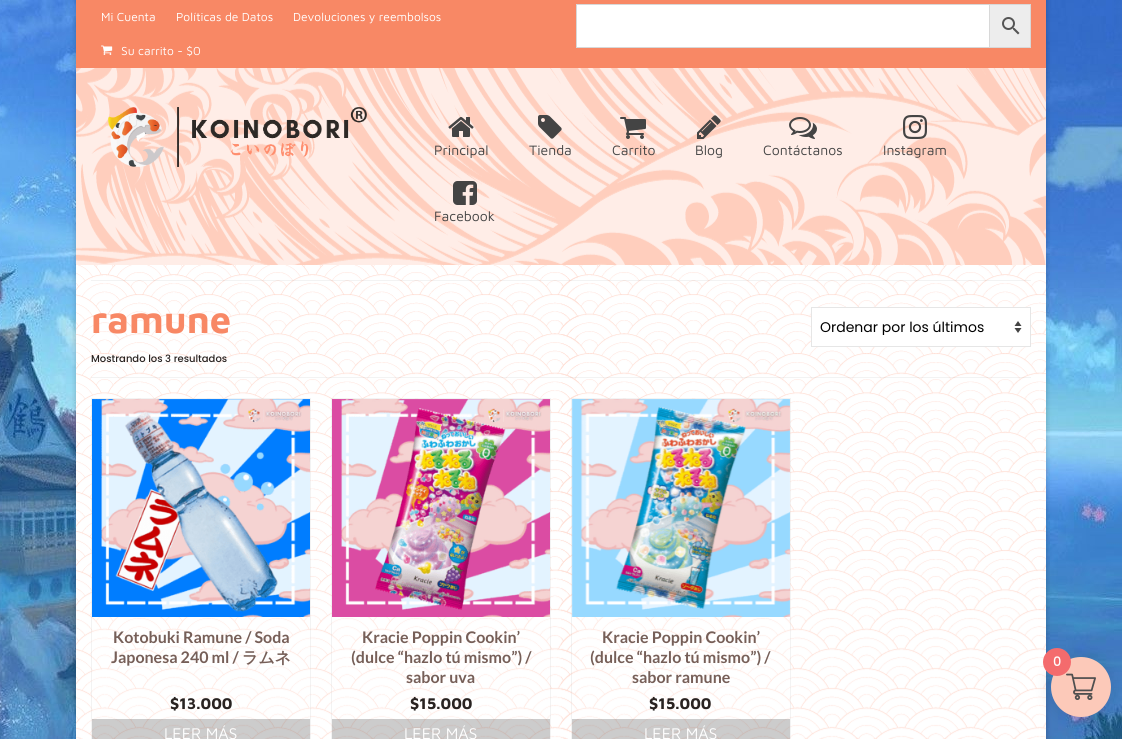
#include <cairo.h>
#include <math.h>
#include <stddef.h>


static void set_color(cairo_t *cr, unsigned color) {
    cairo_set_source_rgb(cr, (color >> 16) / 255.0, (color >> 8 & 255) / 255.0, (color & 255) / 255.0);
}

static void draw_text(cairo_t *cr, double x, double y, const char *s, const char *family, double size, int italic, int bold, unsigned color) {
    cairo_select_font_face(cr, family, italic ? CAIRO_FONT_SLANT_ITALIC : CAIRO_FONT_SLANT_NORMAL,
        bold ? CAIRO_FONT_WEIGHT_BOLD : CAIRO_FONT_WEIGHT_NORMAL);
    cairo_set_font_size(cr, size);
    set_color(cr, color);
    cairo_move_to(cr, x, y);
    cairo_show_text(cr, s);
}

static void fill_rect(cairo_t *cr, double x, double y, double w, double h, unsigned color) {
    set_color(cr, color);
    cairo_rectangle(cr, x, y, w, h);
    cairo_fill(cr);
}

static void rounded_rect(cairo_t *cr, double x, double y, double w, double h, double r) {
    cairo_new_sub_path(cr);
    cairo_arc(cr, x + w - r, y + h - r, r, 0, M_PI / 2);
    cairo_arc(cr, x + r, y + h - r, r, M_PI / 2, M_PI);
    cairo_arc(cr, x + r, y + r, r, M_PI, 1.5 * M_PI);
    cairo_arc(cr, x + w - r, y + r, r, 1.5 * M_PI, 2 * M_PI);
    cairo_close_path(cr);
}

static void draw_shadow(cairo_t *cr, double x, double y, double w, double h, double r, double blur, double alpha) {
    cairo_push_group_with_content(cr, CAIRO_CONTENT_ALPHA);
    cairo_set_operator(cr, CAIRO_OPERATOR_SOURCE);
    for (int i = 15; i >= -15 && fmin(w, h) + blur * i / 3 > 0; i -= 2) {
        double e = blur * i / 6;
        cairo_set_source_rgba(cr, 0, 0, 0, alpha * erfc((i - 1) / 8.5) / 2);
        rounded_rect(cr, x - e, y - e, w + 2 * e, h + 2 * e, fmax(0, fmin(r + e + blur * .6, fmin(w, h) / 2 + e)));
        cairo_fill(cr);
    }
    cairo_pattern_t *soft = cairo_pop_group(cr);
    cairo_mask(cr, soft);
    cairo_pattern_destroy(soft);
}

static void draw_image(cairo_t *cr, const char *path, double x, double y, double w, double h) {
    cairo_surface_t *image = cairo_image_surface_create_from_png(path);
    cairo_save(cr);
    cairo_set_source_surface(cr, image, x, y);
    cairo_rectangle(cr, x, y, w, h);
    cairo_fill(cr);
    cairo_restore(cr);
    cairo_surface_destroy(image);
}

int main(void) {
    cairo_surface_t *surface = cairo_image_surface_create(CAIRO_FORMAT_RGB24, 1122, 739);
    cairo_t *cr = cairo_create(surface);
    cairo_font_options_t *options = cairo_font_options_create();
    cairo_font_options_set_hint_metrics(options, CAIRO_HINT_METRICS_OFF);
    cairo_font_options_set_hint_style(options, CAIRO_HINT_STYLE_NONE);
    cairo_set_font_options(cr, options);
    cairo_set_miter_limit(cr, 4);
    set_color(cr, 0xFFFFFF);
    cairo_paint(cr);
    draw_image(cr, "assets/img1.png", 0, 0, 1122, 739);
    set_color(cr, 0x000000);
    draw_shadow(cr, 75, -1, 972, 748, 0, 2.5, 0.16);
    draw_image(cr, "assets/img2.png", 76, 68, 970, 197);
    fill_rect(cr, 76, 0, 970, 68, 0xF88865);
    draw_text(cr, 101, 21, "Mi Cuenta", "Maven Pro", 12, 0, 0, 0xFFFFFF);
    draw_text(cr, 176, 21, "Políticas de Datos", "Maven Pro", 12, 0, 0, 0xFFFFFF);
    draw_text(cr, 293, 21, "Devoluciones y reembolsos", "Maven Pro", 12, 0, 0, 0xFFFFFF);
    draw_image(cr, "assets/img3.png", 101, 45, 12, 10);
    draw_text(cr, 121, 55, "Su carrito - $0", "Maven Pro", 12, 0, 0, 0xFFFFFF);
    set_color(cr, 0xEDEDED);
    cairo_rectangle(cr, 989.5, 4.5, 41, 43);
    cairo_fill_preserve(cr);
    set_color(cr, 0xD8D8D8);
    cairo_set_line_width(cr, 1);
    cairo_stroke(cr);
    set_color(cr, 0xFFFFFF);
    cairo_rectangle(cr, 576.5, 4.5, 413, 43);
    cairo_fill_preserve(cr);
    set_color(cr, 0xD8D8D8);
    cairo_stroke(cr);
    draw_image(cr, "assets/img4.png", 1002, 17, 18, 18);
    draw_image(cr, "assets/img5.png", 108, 107, 259, 60);
    draw_image(cr, "assets/img6.png", 448, 117, 26, 20);
    draw_text(cr, 434, 155, "Principal", "Maven Pro", 14, 0, 0, 0x444444);
    draw_image(cr, "assets/img7.png", 538, 115, 24, 24);
    draw_text(cr, 529, 155, "Tienda", "Maven Pro", 14, 0, 0, 0x444444);
    draw_image(cr, "assets/img8.png", 620, 117, 26, 22);
    draw_text(cr, 612, 155, "Carrito", "Maven Pro", 14, 0, 0, 0x444444);
    draw_image(cr, "assets/img9.png", 697, 115, 24, 24);
    draw_text(cr, 695, 155, "Blog", "Maven Pro", 14, 0, 0, 0x444444);
    draw_image(cr, "assets/img10.png", 789, 117, 28, 22);
    draw_text(cr, 763, 155, "Contáctanos", "Maven Pro", 14, 0, 0, 0x444444);
    draw_image(cr, "assets/img11.png", 903, 115, 24, 24);
    draw_text(cr, 883, 155, "Instagram", "Maven Pro", 14, 0, 0, 0x444444);
    draw_image(cr, "assets/img12.png", 453, 181, 24, 24);
    draw_text(cr, 434, 221, "Facebook", "Maven Pro", 14, 0, 0, 0x444444);
    draw_image(cr, "assets/img13.png", 76, 265, 970, 474);
    cairo_set_source_rgba(cr, 0, 0, 0, 0.05);
    cairo_rectangle(cr, 91, 280, 940, 1);
    cairo_fill(cr);
    cairo_rectangle(cr, 91, 377, 940, 1);
    cairo_fill(cr);
    draw_text(cr, 91, 333, "ramune", "Maven Pro", 38, 0, 1, 0xF88865);
    fill_rect(cr, 812, 308, 218, 38, 0xFFFFFF);
    set_color(cr, 0x444444);
    cairo_new_path(cr);
    cairo_move_to(cr, 1014.5, 326);
    cairo_line_to(cr, 1018, 321);
    cairo_line_to(cr, 1021.5, 326);
    cairo_close_path(cr);
    cairo_move_to(cr, 1021.5, 328);
    cairo_line_to(cr, 1018, 333);
    cairo_line_to(cr, 1014.5, 328);
    cairo_close_path(cr);
    cairo_fill(cr);
    cairo_rectangle(cr, 811.5, 307.5, 219, 39);
    set_color(cr, 0xE6E6E6);
    cairo_stroke(cr);
    cairo_save(cr);
    cairo_rectangle(cr, 820, 319, 192, 16);
    cairo_clip(cr);
    draw_text(cr, 820, 332, "Ordenar por los últimos", "Poppins", 14, 0, 0, 0x000000);
    cairo_restore(cr);
    draw_text(cr, 91, 362, "Mostrando los 3 resultados", "Poppins Medium", 10, 0, 0, 0x292321);
    cairo_set_source_rgba(cr, 1, 1, 1, 0.2);
    cairo_rectangle(cr, 91, 398, 220, 341);
    cairo_fill(cr);
    cairo_rectangle(cr, 91.5, 398.5, 219, 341);
    cairo_set_source_rgba(cr, 0, 0, 0, 0.05);
    cairo_stroke(cr);
    draw_image(cr, "assets/img14.png", 92, 399, 218, 218);
    draw_text(cr, 113, 643, "Kotobuki Ramune / Soda", "Lato", 16, 0, 1, 0x765F58);
    draw_text(cr, 111, 663, "Japonesa 240 ml /", "Lato", 16, 0, 1, 0x765F58);
    draw_text(cr, 242, 663, "ラムネ", "WenQuanYi Zen Hei", 16, 0, 1, 0x765F58);
    draw_text(cr, 170, 709, "$13.000", "Maven Pro", 16, 0, 1, 0x292321);
    cairo_set_source_rgba(cr, 0, 0, 0, 0.2);
    cairo_rectangle(cr, 92, 719, 218, 20);
    cairo_fill(cr);
    draw_text(cr, 164, 739, "LEER MÁS", "Maven Pro", 16, 0, 0, 0xFFFFFF);
    cairo_set_source_rgba(cr, 1, 1, 1, 0.2);
    cairo_rectangle(cr, 331, 398, 220, 341);
    cairo_fill(cr);
    cairo_rectangle(cr, 331.5, 398.5, 219, 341);
    cairo_set_source_rgba(cr, 0, 0, 0, 0.05);
    cairo_stroke(cr);
    draw_image(cr, "assets/img15.png", 332, 399, 218, 218);
    draw_text(cr, 362, 643, "Kracie Poppin Cookin’", "Lato", 16, 0, 1, 0x765F58);
    draw_text(cr, 351, 663, "(dulce “hazlo tú mismo”) /", "Lato", 16, 0, 1, 0x765F58);
    draw_text(cr, 406, 683, "sabor uva", "Lato", 16, 0, 1, 0x765F58);
    draw_text(cr, 410, 709, "$15.000", "Maven Pro", 16, 0, 1, 0x292321);
    cairo_set_source_rgba(cr, 0, 0, 0, 0.2);
    cairo_rectangle(cr, 332, 719, 218, 20);
    cairo_fill(cr);
    draw_text(cr, 404, 739, "LEER MÁS", "Maven Pro", 16, 0, 0, 0xFFFFFF);
    cairo_set_source_rgba(cr, 1, 1, 1, 0.2);
    cairo_rectangle(cr, 571, 398, 220, 341);
    cairo_fill(cr);
    cairo_rectangle(cr, 571.5, 398.5, 219, 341);
    cairo_set_source_rgba(cr, 0, 0, 0, 0.05);
    cairo_stroke(cr);
    draw_image(cr, "assets/img16.png", 571, 399, 219, 218);
    draw_text(cr, 602, 643, "Kracie Poppin Cookin’", "Lato", 16, 0, 1, 0x765F58);
    draw_text(cr, 590, 663, "(dulce “hazlo tú mismo”) /", "Lato", 16, 0, 1, 0x765F58);
    draw_text(cr, 632, 683, "sabor ramune", "Lato", 16, 0, 1, 0x765F58);
    draw_text(cr, 649, 709, "$15.000", "Maven Pro", 16, 0, 1, 0x292321);
    cairo_set_source_rgba(cr, 0, 0, 0, 0.2);
    cairo_rectangle(cr, 572, 719, 218, 20);
    cairo_fill(cr);
    draw_text(cr, 644, 739, "LEER MÁS", "Maven Pro", 16, 0, 0, 0xFFFFFF);
    set_color(cr, 0x000000);
    draw_shadow(cr, 1049, 655, 64, 64, 32, 7.5, 0.1);
    set_color(cr, 0xFCC9B9);
    cairo_arc(cr, 1081, 687, 30, 0, 2 * M_PI);
    cairo_fill(cr);
    draw_image(cr, "assets/img17.png", 1066, 673, 30, 27);
    set_color(cr, 0xF46B6D);
    cairo_arc(cr, 1057, 662, 14, 0, 2 * M_PI);
    cairo_fill(cr);
    draw_text(cr, 1053, 666, "0", "Poppins Medium", 13, 0, 0, 0xFFFFFF);
    cairo_surface_write_to_png(surface, "output.png");
    cairo_font_options_destroy(options);
    cairo_destroy(cr);
    cairo_surface_destroy(surface);
    return 0;
}
